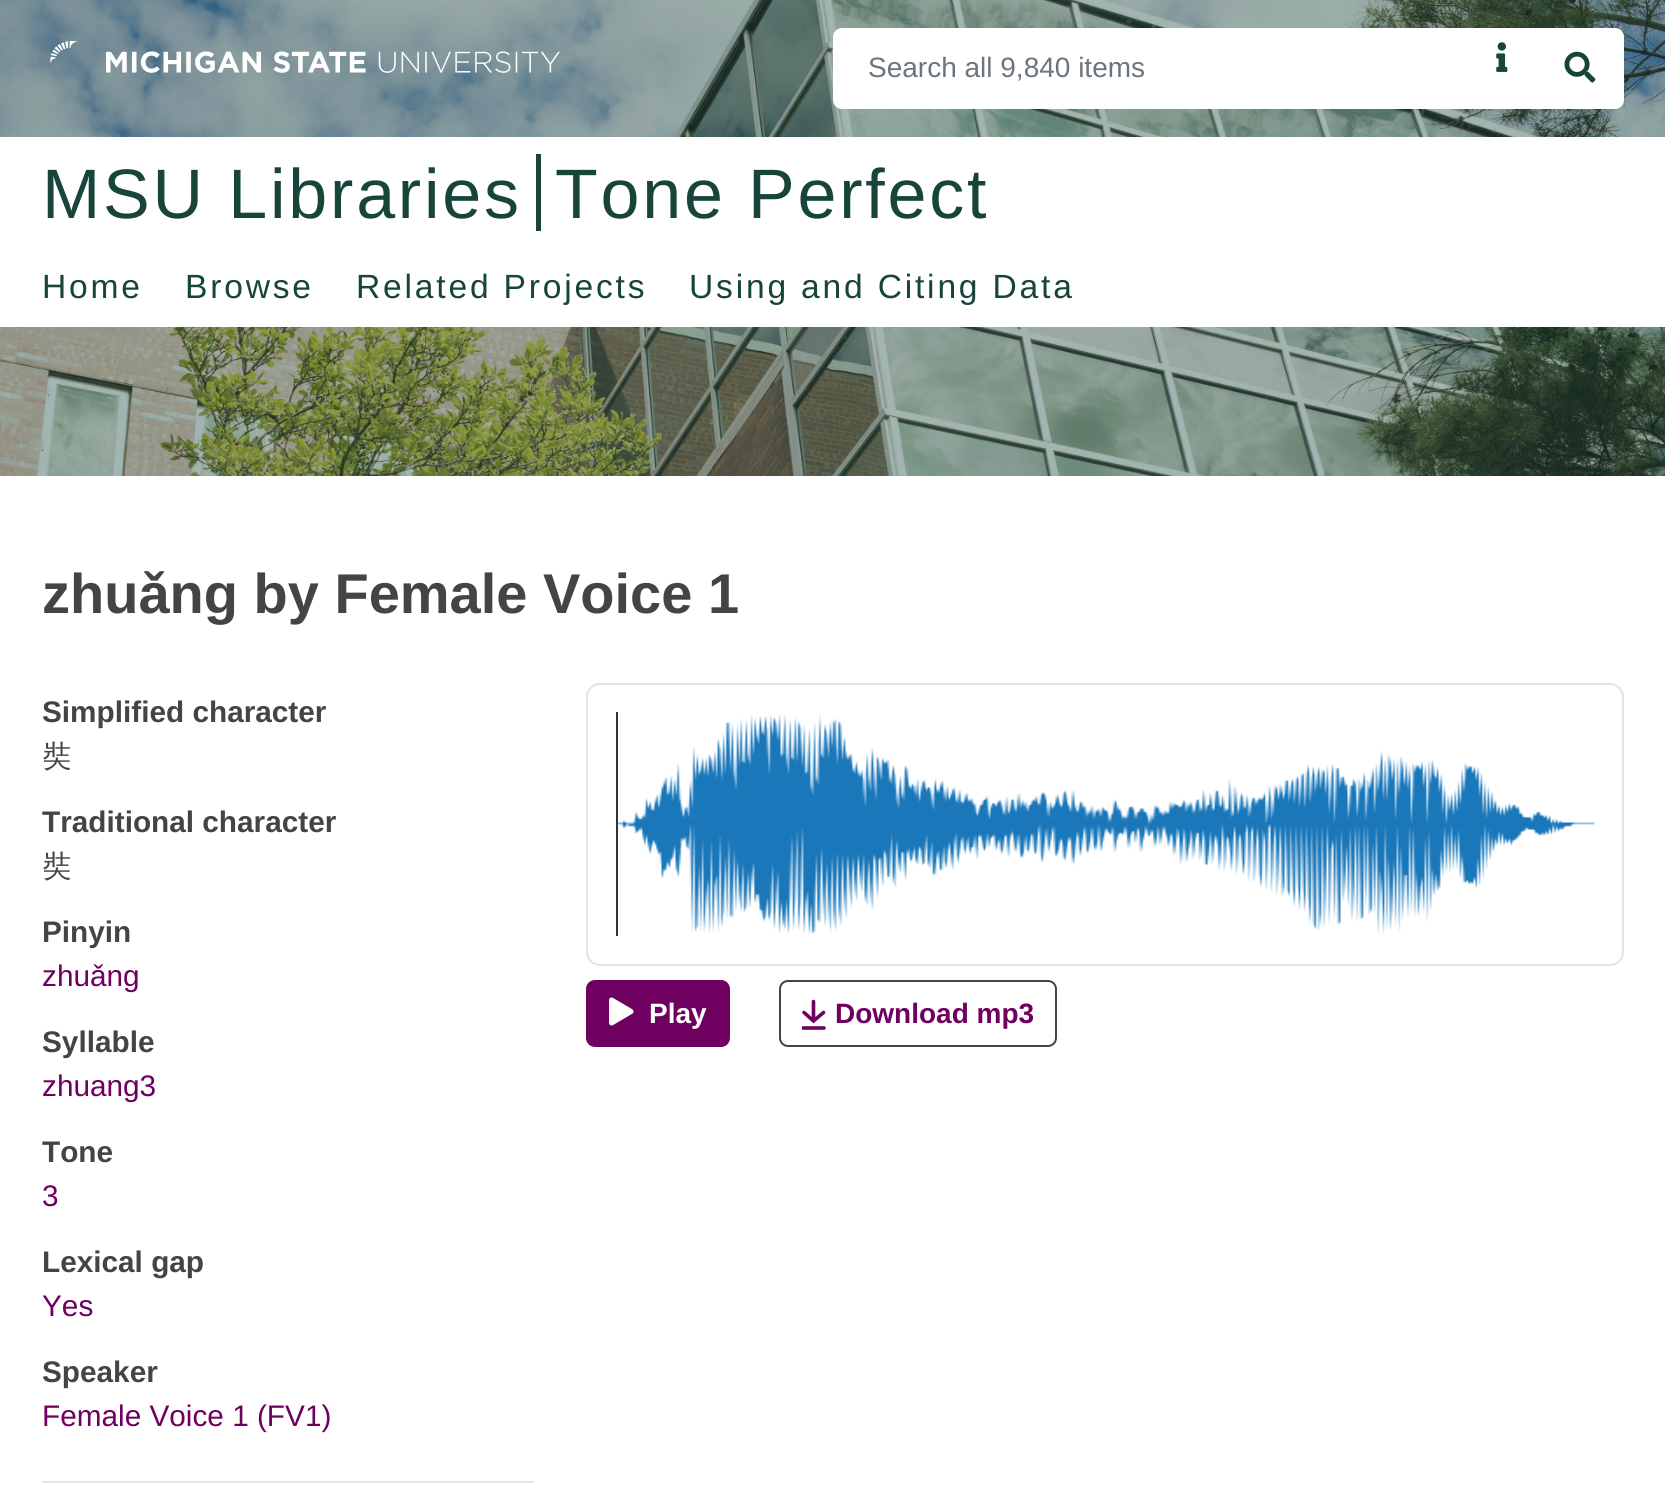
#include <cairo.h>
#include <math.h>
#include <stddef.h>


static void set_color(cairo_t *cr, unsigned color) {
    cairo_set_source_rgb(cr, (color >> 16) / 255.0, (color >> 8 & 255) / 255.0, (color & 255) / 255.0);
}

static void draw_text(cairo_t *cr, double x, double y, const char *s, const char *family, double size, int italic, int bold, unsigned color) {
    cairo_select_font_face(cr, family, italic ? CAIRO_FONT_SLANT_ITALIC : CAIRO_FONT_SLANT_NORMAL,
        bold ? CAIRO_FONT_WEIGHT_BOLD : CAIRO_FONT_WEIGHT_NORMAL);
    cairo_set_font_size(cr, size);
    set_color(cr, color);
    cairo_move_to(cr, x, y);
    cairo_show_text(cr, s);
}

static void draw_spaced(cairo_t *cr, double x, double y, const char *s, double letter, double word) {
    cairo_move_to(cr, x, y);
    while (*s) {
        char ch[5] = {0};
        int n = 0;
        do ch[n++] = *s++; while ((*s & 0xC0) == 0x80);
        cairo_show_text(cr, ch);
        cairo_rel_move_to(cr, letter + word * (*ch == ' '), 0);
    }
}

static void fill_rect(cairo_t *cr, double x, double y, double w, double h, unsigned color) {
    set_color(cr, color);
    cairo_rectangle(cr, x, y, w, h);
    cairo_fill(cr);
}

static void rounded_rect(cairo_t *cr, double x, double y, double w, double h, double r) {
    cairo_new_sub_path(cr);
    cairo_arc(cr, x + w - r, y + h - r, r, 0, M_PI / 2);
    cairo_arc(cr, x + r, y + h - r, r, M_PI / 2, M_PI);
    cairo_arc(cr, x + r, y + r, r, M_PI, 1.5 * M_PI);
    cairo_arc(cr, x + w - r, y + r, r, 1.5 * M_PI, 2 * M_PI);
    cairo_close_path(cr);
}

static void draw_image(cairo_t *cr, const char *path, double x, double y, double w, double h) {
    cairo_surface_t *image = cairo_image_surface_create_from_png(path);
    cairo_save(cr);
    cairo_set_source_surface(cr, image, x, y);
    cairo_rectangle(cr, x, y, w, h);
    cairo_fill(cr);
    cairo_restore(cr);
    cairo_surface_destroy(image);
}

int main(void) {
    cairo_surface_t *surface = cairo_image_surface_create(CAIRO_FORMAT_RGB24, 1665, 1496);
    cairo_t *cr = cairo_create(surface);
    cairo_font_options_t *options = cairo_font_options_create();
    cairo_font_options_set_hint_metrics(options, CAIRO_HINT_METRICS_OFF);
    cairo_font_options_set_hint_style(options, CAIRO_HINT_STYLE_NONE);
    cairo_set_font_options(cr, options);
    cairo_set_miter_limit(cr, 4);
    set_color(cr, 0xFFFFFF);
    cairo_paint(cr);
    draw_image(cr, "assets/img1.png", 0, 0, 1665, 476);
    draw_image(cr, "assets/img2.png", 50, 41, 510, 32);
    set_color(cr, 0xFFFFFF);
    cairo_new_path(cr);
    cairo_move_to(cr, 842, 31.5);
    cairo_line_to(cr, 1478.5, 31.5);
    cairo_line_to(cr, 1478.5, 105.5);
    cairo_line_to(cr, 842, 105.5);
    cairo_curve_to(cr, 839, 105.5, 836.5, 103, 836.5, 100);
    cairo_line_to(cr, 836.5, 37);
    cairo_curve_to(cr, 836.5, 34, 839, 31.5, 842, 31.5);
    cairo_close_path(cr);
    cairo_fill_preserve(cr);
    cairo_set_line_width(cr, 7);
    cairo_stroke(cr);
    draw_text(cr, 868, 77, "Search all 9,840 items", "Liberation Sans", 28, 0, 0, 0x6C757D);
    fill_rect(cr, 1482, 28, 55, 81, 0xFFFFFF);
    draw_image(cr, "assets/img3.png", 1496, 42, 12, 30);
    cairo_new_path(cr);
    cairo_move_to(cr, 1537, 28);
    cairo_line_to(cr, 1615, 28);
    cairo_curve_to(cr, 1620, 28, 1624, 32, 1624, 37);
    cairo_line_to(cr, 1624, 100);
    cairo_curve_to(cr, 1624, 105, 1620, 109, 1615, 109);
    cairo_line_to(cr, 1537, 109);
    cairo_close_path(cr);
    cairo_fill(cr);
    draw_image(cr, "assets/img4.png", 1564, 51, 32, 32);
    fill_rect(cr, 0, 137, 1665, 190, 0xFFFFFF);
    cairo_set_font_size(cr, 70);
    set_color(cr, 0x18453B);
    draw_spaced(cr, 42, 218, "MSU Libraries", 2.8, 0);
    fill_rect(cr, 536, 154, 5, 77, 0x18453B);
    draw_spaced(cr, 555, 218, "Tone Perfect", 2.8, 0);
    cairo_set_font_size(cr, 33.6);
    draw_spaced(cr, 42, 298, "Home", 2.8, 0);
    draw_spaced(cr, 185, 298, "Browse", 2.8, 0);
    draw_spaced(cr, 356, 298, "Related Projects", 2.8, 0);
    draw_spaced(cr, 689, 298, "Using and Citing Data", 2.8, 0);
    draw_text(cr, 42, 613, "zhuǎng by Female Voice 1", "Liberation Sans", 56, 0, 1, 0x444444);
    draw_text(cr, 42, 722, "Simplified character", "Liberation Sans", 29.75, 0, 1, 0x444444);
    draw_text(cr, 42, 766, "奘", "WenQuanYi Zen Hei Medium", 29.75, 0, 0, 0x444444);
    draw_text(cr, 42, 832, "Traditional character", "Liberation Sans", 29.75, 0, 1, 0x444444);
    draw_text(cr, 42, 876, "奘", "WenQuanYi Zen Hei Medium", 29.75, 0, 0, 0x444444);
    draw_text(cr, 42, 942, "Pinyin", "Liberation Sans", 29.75, 0, 1, 0x444444);
    draw_text(cr, 42, 986, "zhuǎng", "Liberation Sans", 29.75, 0, 0, 0x6E005F);
    draw_text(cr, 42, 1052, "Syllable", "Liberation Sans", 29.75, 0, 1, 0x444444);
    draw_text(cr, 42, 1096, "zhuang3", "Liberation Sans", 29.75, 0, 0, 0x6E005F);
    draw_text(cr, 42, 1162, "Tone", "Liberation Sans", 29.75, 0, 1, 0x444444);
    draw_text(cr, 42, 1206, "3", "Liberation Sans", 29.75, 0, 0, 0x6E005F);
    draw_text(cr, 42, 1272, "Lexical gap", "Liberation Sans", 29.75, 0, 1, 0x444444);
    draw_text(cr, 42, 1316, "Yes", "Liberation Sans", 29.75, 0, 0, 0x6E005F);
    draw_text(cr, 42, 1382, "Speaker", "Liberation Sans", 29.75, 0, 1, 0x444444);
    draw_text(cr, 42, 1426, "Female Voice 1 (FV1)", "Liberation Sans", 29.75, 0, 0, 0x6E005F);
    fill_rect(cr, 42, 1481, 492, 2, 0xE6E6E6);
    rounded_rect(cr, 587, 684, 1036, 281, 13);
    set_color(cr, 0xE3E3E3);
    cairo_set_line_width(cr, 2);
    cairo_stroke(cr);
    fill_rect(cr, 616, 712, 2, 224, 0x333333);
    draw_image(cr, "assets/img5.png", 618, 714, 977, 221);
    set_color(cr, 0x6E005F);
    rounded_rect(cr, 587, 981, 142, 65, 8);
    cairo_fill_preserve(cr);
    cairo_stroke(cr);
    draw_image(cr, "assets/img6.png", 609, 997, 25, 29);
    draw_text(cr, 649, 1023, "Play", "Liberation Sans", 28, 0, 1, 0xFFFFFF);
    rounded_rect(cr, 780, 981, 276, 65, 8);
    set_color(cr, 0x444444);
    cairo_stroke(cr);
    cairo_new_path(cr);
    cairo_move_to(cr, 813.5, 1019.5);
    cairo_line_to(cr, 813.5, 1001.5);
    cairo_move_to(cr, 804, 1012.5);
    cairo_line_to(cr, 813.5, 1021);
    cairo_line_to(cr, 823.5, 1012.5);
    set_color(cr, 0x6E005F);
    cairo_set_line_width(cr, 3.6);
    cairo_set_line_cap(cr, CAIRO_LINE_CAP_ROUND);
    cairo_stroke(cr);
    draw_text(cr, 835, 1023, "Download mp3", "Liberation Sans", 28, 0, 1, 0x6E005F);
    cairo_save(cr);
    cairo_rectangle(cr, 802, 999, 26, 32);
    cairo_clip(cr);
    cairo_new_path(cr);
    cairo_move_to(cr, 803, 1028);
    cairo_line_to(cr, 824, 1028);
    cairo_stroke(cr);
    cairo_restore(cr);
    cairo_surface_write_to_png(surface, "output.png");
    cairo_font_options_destroy(options);
    cairo_destroy(cr);
    cairo_surface_destroy(surface);
    return 0;
}
